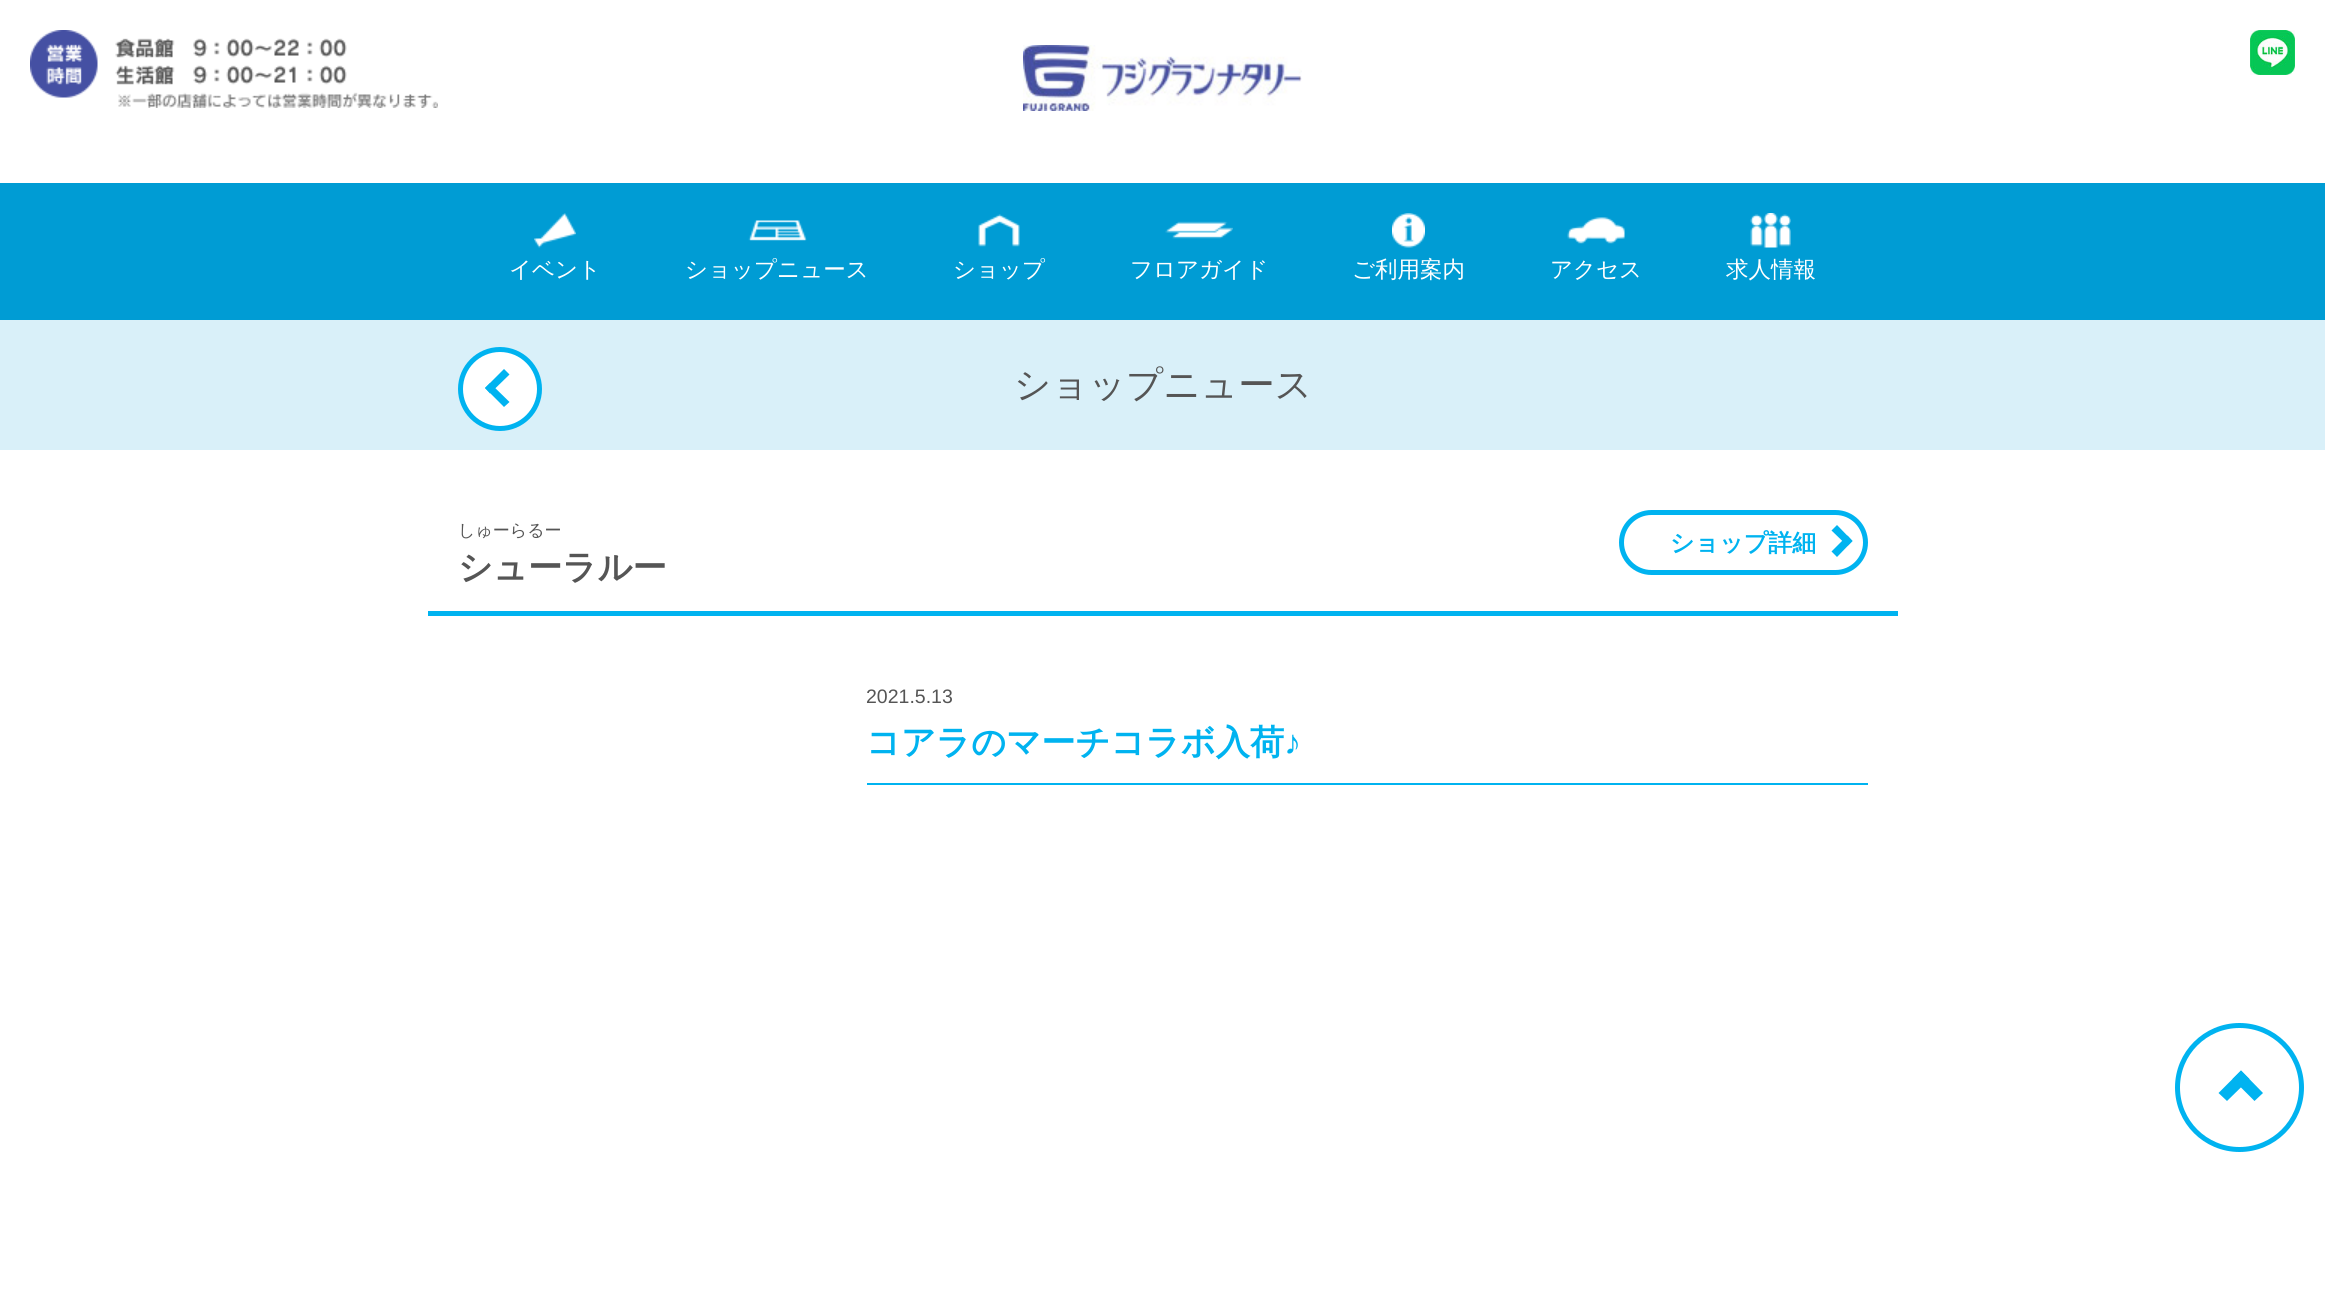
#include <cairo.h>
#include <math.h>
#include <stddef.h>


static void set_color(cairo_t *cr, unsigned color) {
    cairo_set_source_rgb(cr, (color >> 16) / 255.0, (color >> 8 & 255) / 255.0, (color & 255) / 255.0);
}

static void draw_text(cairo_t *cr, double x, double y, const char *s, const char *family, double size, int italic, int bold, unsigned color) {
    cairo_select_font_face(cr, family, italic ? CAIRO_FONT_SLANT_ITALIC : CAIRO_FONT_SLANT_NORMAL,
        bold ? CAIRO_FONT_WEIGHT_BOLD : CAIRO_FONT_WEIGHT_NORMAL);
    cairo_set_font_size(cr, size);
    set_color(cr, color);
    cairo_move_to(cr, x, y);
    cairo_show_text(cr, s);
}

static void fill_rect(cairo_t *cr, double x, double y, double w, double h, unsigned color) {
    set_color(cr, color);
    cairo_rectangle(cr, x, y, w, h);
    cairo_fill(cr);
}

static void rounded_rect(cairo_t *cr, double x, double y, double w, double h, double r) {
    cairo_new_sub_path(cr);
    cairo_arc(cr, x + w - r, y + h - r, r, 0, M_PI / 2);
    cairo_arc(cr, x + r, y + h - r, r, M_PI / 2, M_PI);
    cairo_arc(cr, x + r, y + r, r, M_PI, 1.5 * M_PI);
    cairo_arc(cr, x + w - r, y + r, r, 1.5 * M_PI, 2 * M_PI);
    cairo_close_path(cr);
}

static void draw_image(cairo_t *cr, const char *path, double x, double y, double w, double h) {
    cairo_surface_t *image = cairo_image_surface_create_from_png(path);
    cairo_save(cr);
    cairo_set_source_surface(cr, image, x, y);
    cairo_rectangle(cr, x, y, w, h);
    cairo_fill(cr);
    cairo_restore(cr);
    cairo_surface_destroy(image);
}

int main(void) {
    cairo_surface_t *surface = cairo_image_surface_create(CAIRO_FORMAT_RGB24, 2325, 1292);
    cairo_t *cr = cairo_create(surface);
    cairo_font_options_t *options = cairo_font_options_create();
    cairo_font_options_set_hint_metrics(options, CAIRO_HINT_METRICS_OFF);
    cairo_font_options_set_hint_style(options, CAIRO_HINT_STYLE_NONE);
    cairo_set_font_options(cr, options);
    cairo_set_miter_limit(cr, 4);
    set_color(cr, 0xFFFFFF);
    cairo_paint(cr);
    draw_image(cr, "assets/img1.png", 30, 30, 408, 78);
    draw_image(cr, "assets/img2.png", 1023, 45, 279, 66);
    draw_image(cr, "assets/img3.png", 2250, 30, 45, 45);
    fill_rect(cr, 0, 183, 2325, 137, 0x009CD4);
    draw_image(cr, "assets/img4.png", 534, 213, 42, 35);
    draw_text(cr, 509, 277, "イベント", "WenQuanYi Zen Hei Medium", 22.5, 0, 0, 0xFFFFFF);
    draw_image(cr, "assets/img5.png", 748, 220, 59, 21);
    draw_text(cr, 685, 277, "ショップニュース", "WenQuanYi Zen Hei Medium", 22.5, 0, 0, 0xFFFFFF);
    draw_image(cr, "assets/img6.png", 978, 214, 42, 33);
    draw_text(cr, 953, 277, "ショップ", "WenQuanYi Zen Hei Medium", 22.5, 0, 0, 0xFFFFFF);
    draw_image(cr, "assets/img7.png", 1165, 221, 68, 18);
    draw_text(cr, 1130, 277, "フロアガイド", "WenQuanYi Zen Hei Medium", 22.5, 0, 0, 0xFFFFFF);
    draw_image(cr, "assets/img8.png", 1392, 213, 33, 35);
    draw_text(cr, 1352, 277, "ご利用案内", "WenQuanYi Zen Hei Medium", 22.5, 0, 0, 0xFFFFFF);
    draw_image(cr, "assets/img9.png", 1567, 217, 58, 27);
    draw_text(cr, 1550, 277, "アクセス", "WenQuanYi Zen Hei Medium", 22.5, 0, 0, 0xFFFFFF);
    draw_image(cr, "assets/img10.png", 1750, 213, 41, 35);
    draw_text(cr, 1726, 277, "求人情報", "WenQuanYi Zen Hei Medium", 22.5, 0, 0, 0xFFFFFF);
    fill_rect(cr, 0, 320, 2325, 130, 0xD9F0F9);
    set_color(cr, 0xFFFFFF);
    cairo_new_path(cr);
    cairo_arc(cr, 500, 389, 39.5, 0, 2 * M_PI);
    cairo_fill_preserve(cr);
    set_color(cr, 0x00B3F0);
    cairo_set_line_width(cr, 5);
    cairo_stroke(cr);
    cairo_new_path(cr);
    cairo_move_to(cr, 504, 407);
    cairo_line_to(cr, 485, 388);
    cairo_line_to(cr, 490, 383);
    cairo_line_to(cr, 509.5, 402);
    cairo_close_path(cr);
    cairo_fill(cr);
    cairo_new_path(cr);
    cairo_move_to(cr, 490, 393.5);
    cairo_line_to(cr, 485, 388);
    cairo_line_to(cr, 504, 369);
    cairo_line_to(cr, 509.5, 374.5);
    cairo_close_path(cr);
    cairo_fill(cr);
    draw_text(cr, 1014, 397, "ショップニュース", "WenQuanYi Zen Hei Medium", 36.5, 0, 0, 0x555555);
    fill_rect(cr, 428, 611, 1470, 5, 0x00B3F0);
    draw_text(cr, 458, 536, "しゅーらるー", "WenQuanYi Zen Hei Medium", 17, 0, 0, 0x555555);
    rounded_rect(cr, 1621.5, 512.5, 244, 60, 30);
    set_color(cr, 0x00B3F0);
    cairo_stroke(cr);
    draw_text(cr, 1670, 551, "ショップ詳細", "WenQuanYi Zen Hei", 24, 0, 1, 0x00B3F0);
    cairo_new_path(cr);
    cairo_move_to(cr, 1837, 525);
    cairo_line_to(cr, 1852.5, 541);
    cairo_line_to(cr, 1847.5, 546);
    cairo_line_to(cr, 1831.5, 530.5);
    cairo_close_path(cr);
    cairo_fill(cr);
    cairo_new_path(cr);
    cairo_move_to(cr, 1847.5, 535.5);
    cairo_line_to(cr, 1852.5, 541);
    cairo_line_to(cr, 1837, 557);
    cairo_line_to(cr, 1831.5, 551.5);
    cairo_close_path(cr);
    cairo_fill(cr);
    draw_text(cr, 458, 579, "シューラルー", "WenQuanYi Zen Hei", 34.25, 0, 1, 0x555555);
    draw_text(cr, 866, 703, "2021.5.13", "Liberation Sans", 19.5, 0, 0, 0x555555);
    draw_text(cr, 866, 754, "コアラのマーチコラボ入荷", "WenQuanYi Zen Hei", 34.25, 0, 1, 0x00B3F0);
    draw_text(cr, 1284, 754, "♪", "Liberation Sans", 34.25, 0, 1, 0x00B3F0);
    fill_rect(cr, 867, 783, 1001, 2, 0x00B3F0);
    cairo_new_path(cr);
    cairo_arc(cr, 2239.5, 1087.5, 62, 0, 2 * M_PI);
    cairo_stroke(cr);
    cairo_new_path(cr);
    cairo_move_to(cr, 2218.5, 1093);
    cairo_line_to(cr, 2241, 1070.5);
    cairo_line_to(cr, 2249.5, 1079);
    cairo_line_to(cr, 2227, 1101);
    cairo_close_path(cr);
    cairo_fill(cr);
    cairo_new_path(cr);
    cairo_move_to(cr, 2232.5, 1079);
    cairo_line_to(cr, 2241, 1070.5);
    cairo_line_to(cr, 2263, 1093);
    cairo_line_to(cr, 2254.5, 1101);
    cairo_close_path(cr);
    cairo_fill(cr);
    cairo_surface_write_to_png(surface, "output.png");
    cairo_font_options_destroy(options);
    cairo_destroy(cr);
    cairo_surface_destroy(surface);
    return 0;
}
